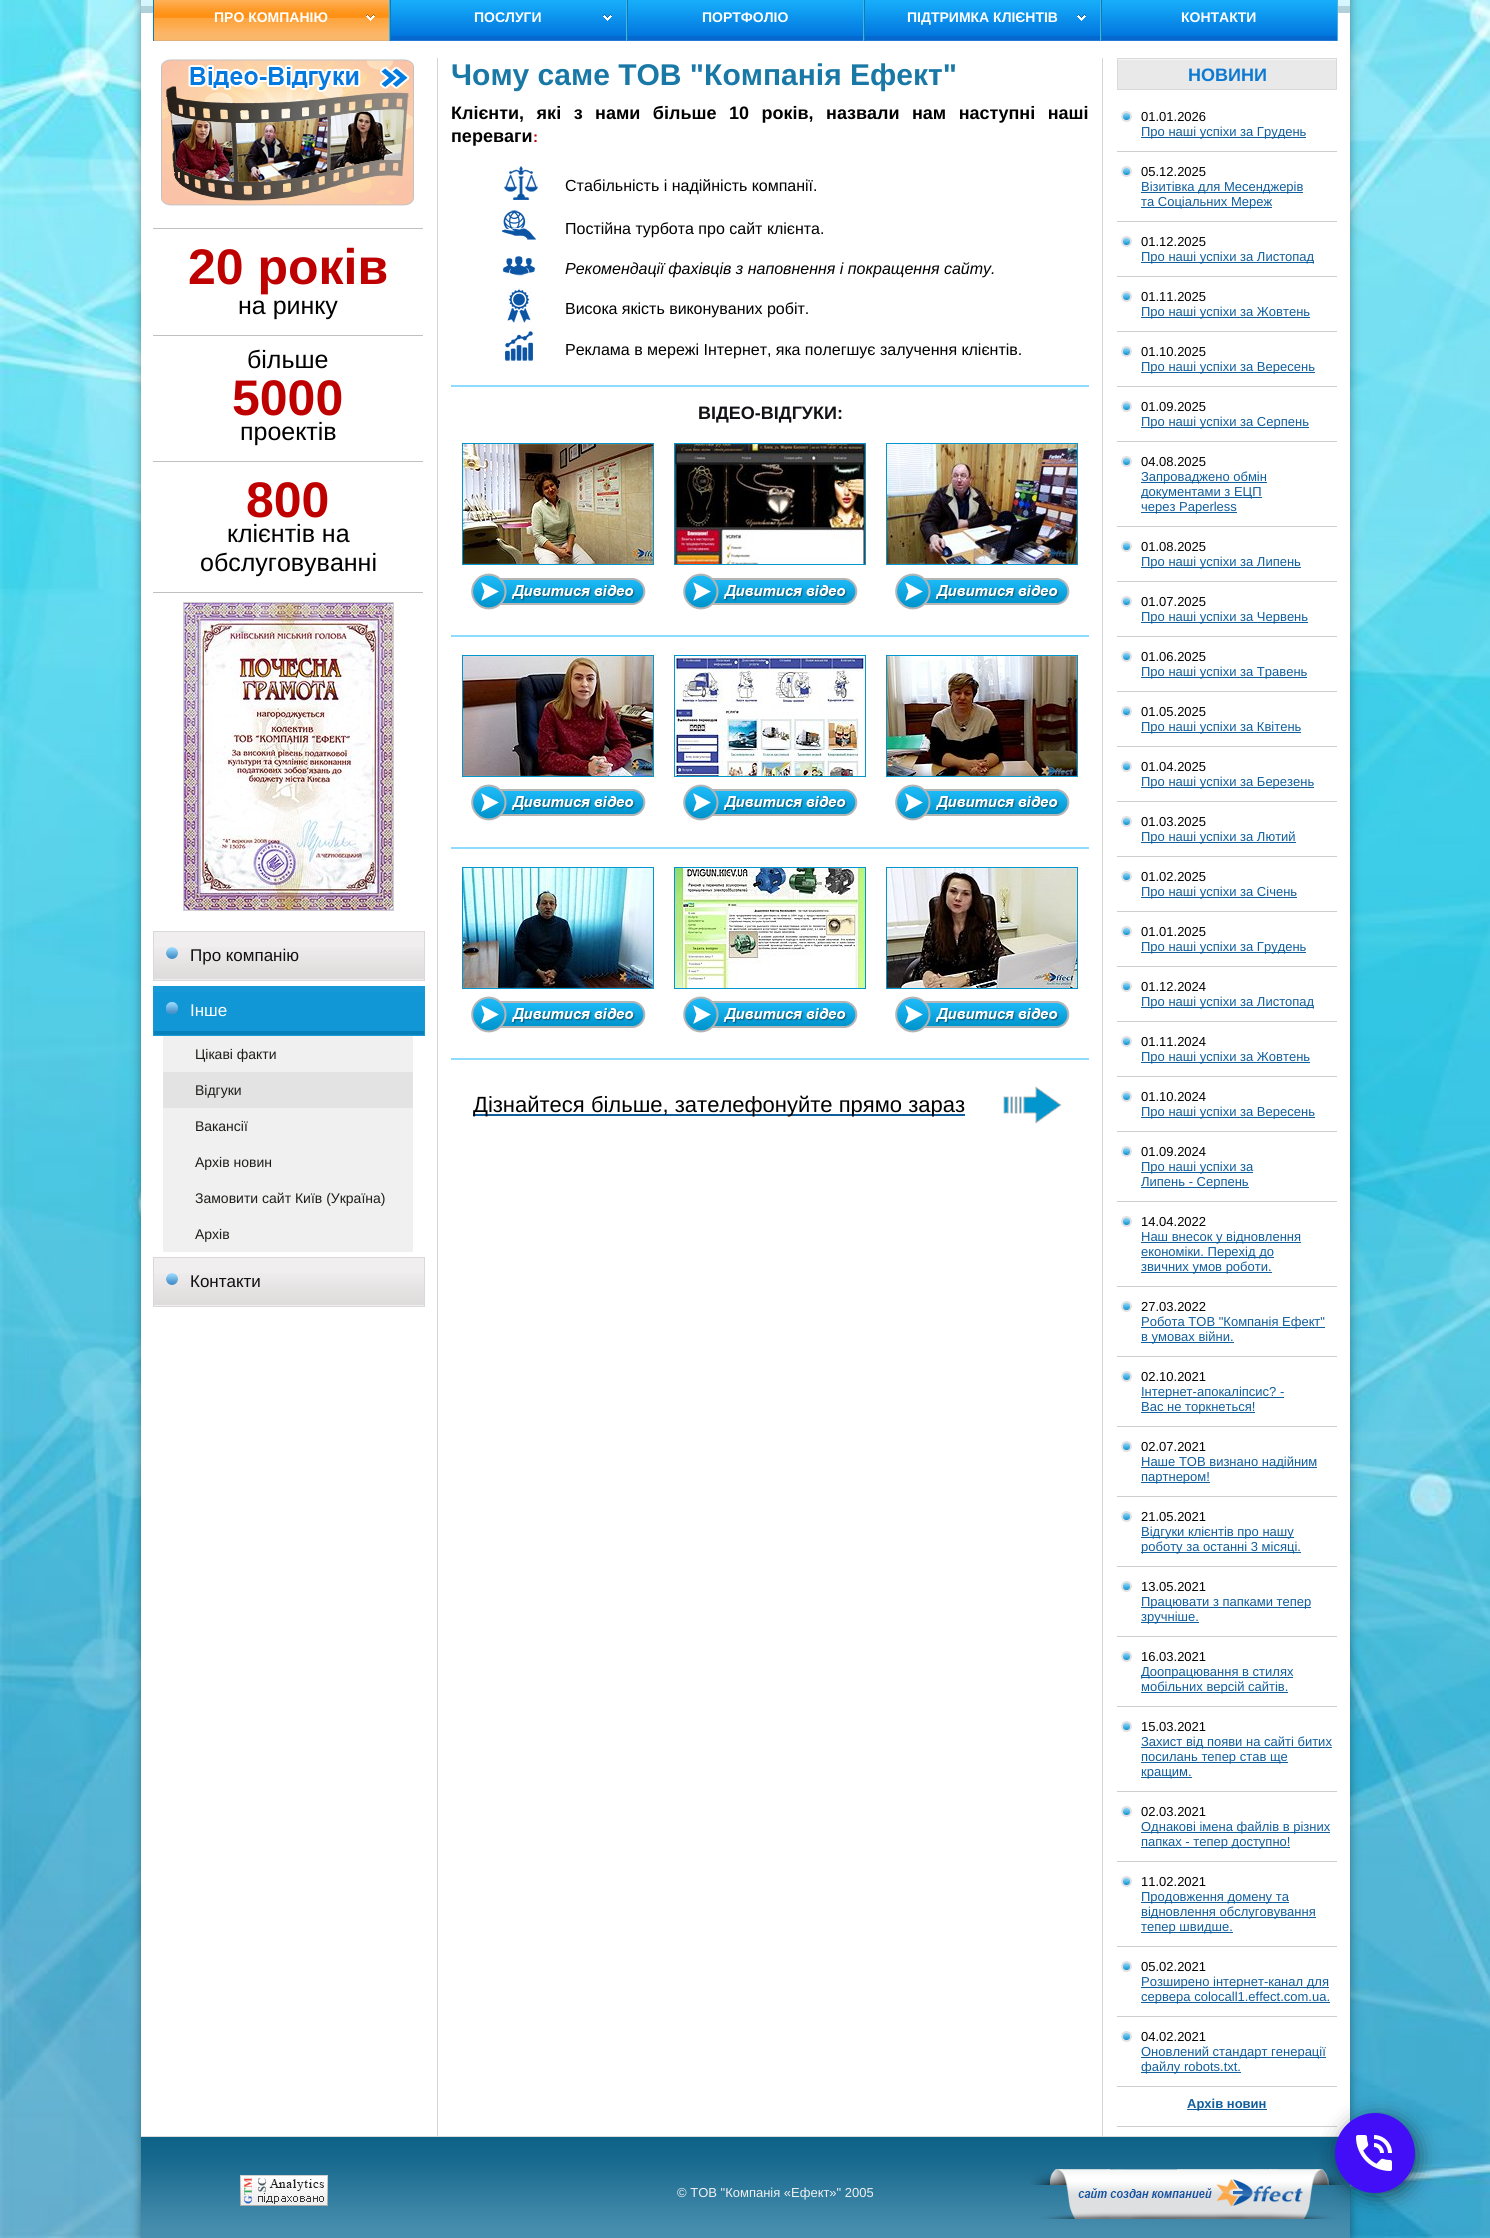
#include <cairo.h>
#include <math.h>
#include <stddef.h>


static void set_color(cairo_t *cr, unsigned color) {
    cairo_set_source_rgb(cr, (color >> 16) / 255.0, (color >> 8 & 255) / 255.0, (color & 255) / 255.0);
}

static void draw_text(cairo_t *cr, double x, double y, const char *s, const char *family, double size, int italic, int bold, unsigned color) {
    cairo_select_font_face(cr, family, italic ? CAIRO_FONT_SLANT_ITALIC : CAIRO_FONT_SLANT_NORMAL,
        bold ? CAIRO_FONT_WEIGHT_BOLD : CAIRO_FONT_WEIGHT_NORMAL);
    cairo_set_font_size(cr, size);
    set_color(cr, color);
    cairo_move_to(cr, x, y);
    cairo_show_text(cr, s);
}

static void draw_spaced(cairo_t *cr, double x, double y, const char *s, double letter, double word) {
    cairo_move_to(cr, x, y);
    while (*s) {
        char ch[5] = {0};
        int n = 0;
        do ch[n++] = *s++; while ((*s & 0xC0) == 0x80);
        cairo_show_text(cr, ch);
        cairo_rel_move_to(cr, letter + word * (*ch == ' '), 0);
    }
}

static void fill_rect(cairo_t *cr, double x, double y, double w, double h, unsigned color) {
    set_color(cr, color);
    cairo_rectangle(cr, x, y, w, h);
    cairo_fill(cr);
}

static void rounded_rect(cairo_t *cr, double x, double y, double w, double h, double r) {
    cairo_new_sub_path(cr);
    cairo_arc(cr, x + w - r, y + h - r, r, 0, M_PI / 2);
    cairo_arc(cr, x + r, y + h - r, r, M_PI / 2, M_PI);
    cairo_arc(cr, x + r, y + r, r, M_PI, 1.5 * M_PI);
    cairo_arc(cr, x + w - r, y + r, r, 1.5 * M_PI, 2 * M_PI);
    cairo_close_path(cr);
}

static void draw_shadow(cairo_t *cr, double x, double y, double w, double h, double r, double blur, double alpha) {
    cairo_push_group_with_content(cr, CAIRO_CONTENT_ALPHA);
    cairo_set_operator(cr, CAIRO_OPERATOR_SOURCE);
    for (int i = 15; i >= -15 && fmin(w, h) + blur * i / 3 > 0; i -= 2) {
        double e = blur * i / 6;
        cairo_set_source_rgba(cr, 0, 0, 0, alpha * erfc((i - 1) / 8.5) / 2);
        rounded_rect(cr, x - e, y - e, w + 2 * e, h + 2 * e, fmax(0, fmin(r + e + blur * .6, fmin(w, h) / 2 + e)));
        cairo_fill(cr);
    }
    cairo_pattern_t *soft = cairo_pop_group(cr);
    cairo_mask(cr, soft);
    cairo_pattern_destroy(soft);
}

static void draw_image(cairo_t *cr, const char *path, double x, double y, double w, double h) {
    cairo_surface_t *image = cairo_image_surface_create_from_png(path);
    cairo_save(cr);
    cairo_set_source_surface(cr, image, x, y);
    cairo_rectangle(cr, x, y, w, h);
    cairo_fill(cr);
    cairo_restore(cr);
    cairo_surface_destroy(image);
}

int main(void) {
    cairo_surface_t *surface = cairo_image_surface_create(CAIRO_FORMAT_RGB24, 1490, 2238);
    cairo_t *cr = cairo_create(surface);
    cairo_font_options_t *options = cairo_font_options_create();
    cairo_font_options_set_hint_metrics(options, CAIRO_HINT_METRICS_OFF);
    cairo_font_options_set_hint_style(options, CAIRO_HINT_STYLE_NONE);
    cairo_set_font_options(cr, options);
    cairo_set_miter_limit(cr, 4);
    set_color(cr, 0xFFFFFF);
    cairo_paint(cr);
    draw_image(cr, "assets/img1.png", 0, 0, 1490, 2238);
    set_color(cr, 0x000000);
    draw_shadow(cr, 141, -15, 1209, 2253, 0, 5, 0.4);
    fill_rect(cr, 141, 13, 1209, 2123, 0xFFFFFF);
    draw_image(cr, "assets/img2.png", 141, 0, 1209, 13);
    draw_image(cr, "assets/img3.png", 154, 0, 235, 41);
    fill_rect(cr, 389, 0, 1, 41, 0x49B0E2);
    fill_rect(cr, 153, 0, 1, 41, 0x0580BA);
    draw_image(cr, "assets/img4.png", 366, 14, 9, 7);
    draw_text(cr, 214, 22, "ПРО КОМПАНІЮ", "Liberation Sans", 14, 0, 1, 0xFFFFFF);
    draw_image(cr, "assets/img5.png", 391, 0, 235, 41);
    fill_rect(cr, 626, 0, 1, 41, 0x49B0E2);
    fill_rect(cr, 390, 0, 1, 41, 0x0580BA);
    draw_image(cr, "assets/img6.png", 603, 14, 9, 7);
    draw_text(cr, 474, 22, "ПОСЛУГИ", "Liberation Sans", 14, 0, 1, 0xFFFFFF);
    draw_image(cr, "assets/img5.png", 628, 0, 235, 41);
    fill_rect(cr, 863, 0, 1, 41, 0x49B0E2);
    fill_rect(cr, 627, 0, 1, 41, 0x0580BA);
    draw_text(cr, 702, 22, "ПОРТФОЛІО", "Liberation Sans", 14, 0, 1, 0xFFFFFF);
    draw_image(cr, "assets/img5.png", 865, 0, 235, 41);
    fill_rect(cr, 1100, 0, 1, 41, 0x49B0E2);
    fill_rect(cr, 864, 0, 1, 41, 0x0580BA);
    draw_image(cr, "assets/img6.png", 1077, 14, 9, 7);
    draw_text(cr, 907, 22, "ПІДТРИМКА КЛІЄНТІВ", "Liberation Sans", 14, 0, 1, 0xFFFFFF);
    draw_image(cr, "assets/img5.png", 1102, 0, 235, 41);
    fill_rect(cr, 1337, 0, 1, 41, 0x49B0E2);
    fill_rect(cr, 1101, 0, 1, 41, 0x0580BA);
    draw_text(cr, 1181, 22, "КОНТАКТИ", "Liberation Sans", 14, 0, 1, 0xFFFFFF);
    draw_image(cr, "assets/img7.png", 161, 59, 253, 147);
    fill_rect(cr, 153, 228, 270, 1, 0xC0C0C0);
    draw_text(cr, 188, 284, "20 років", "Liberation Sans", 50, 0, 1, 0xBF0000);
    draw_text(cr, 238, 314, "на ринку", "Liberation Sans", 25, 0, 0, 0x000000);
    fill_rect(cr, 153, 335, 270, 1, 0xC0C0C0);
    draw_text(cr, 247, 368, "більше", "Liberation Sans", 25, 0, 0, 0x000000);
    draw_text(cr, 232, 415, "5000", "Liberation Sans", 50, 0, 1, 0xBF0000);
    draw_text(cr, 240, 440, "проектів", "Liberation Sans", 25, 0, 0, 0x000000);
    fill_rect(cr, 153, 461, 270, 1, 0xC0C0C0);
    draw_text(cr, 246, 517, "800", "Liberation Sans", 50, 0, 1, 0xBF0000);
    draw_text(cr, 227, 542, "клієнтів на", "Liberation Sans", 25, 0, 0, 0x000000);
    draw_text(cr, 200, 571, "обслуговуванні", "Liberation Sans", 25, 0, 0, 0x000000);
    fill_rect(cr, 153, 592, 270, 1, 0xC0C0C0);
    cairo_rectangle(cr, 183.5, 602.5, 210, 308);
    set_color(cr, 0xCFCFCF);
    cairo_set_line_width(cr, 1);
    cairo_stroke(cr);
    draw_image(cr, "assets/img8.png", 184, 603, 209, 307);
    fill_rect(cr, 154, 932, 270, 48, 0xF0EEEF);
    draw_image(cr, "assets/img9.png", 154, 947, 270, 32);
    cairo_rectangle(cr, 153.5, 931.5, 271, 49);
    set_color(cr, 0xDAD8D9);
    cairo_stroke(cr);
    draw_text(cr, 190, 961, "Про компанію", "Liberation Sans", 17, 0, 0, 0x110F10);
    fill_rect(cr, 154, 987, 270, 5, 0x1899D7);
    draw_image(cr, "assets/img10.png", 154, 992, 270, 43);
    cairo_rectangle(cr, 153.5, 986.5, 271, 49);
    cairo_stroke(cr);
    draw_text(cr, 190, 1016, "Інше", "Liberation Sans", 17, 0, 0, 0xFFFFFF);
    fill_rect(cr, 163, 1036, 250, 36, 0xF1F0F0);
    draw_text(cr, 195, 1059, "Цікаві факти", "Liberation Sans", 14, 0, 0, 0x1D1E19);
    fill_rect(cr, 163, 1072, 250, 36, 0xE3E3E3);
    draw_text(cr, 195, 1095, "Відгуки", "Liberation Sans", 14, 0, 0, 0x1D1E19);
    fill_rect(cr, 163, 1108, 250, 144, 0xF1F0F0);
    draw_text(cr, 195, 1131, "Вакансії", "Liberation Sans", 14, 0, 0, 0x1D1E19);
    draw_text(cr, 195, 1167, "Архів новин", "Liberation Sans", 14, 0, 0, 0x1D1E19);
    draw_text(cr, 195, 1203, "Замовити сайт Київ (Україна)", "Liberation Sans", 14, 0, 0, 0x1D1E19);
    draw_text(cr, 195, 1239, "Архів", "Liberation Sans", 14, 0, 0, 0x1D1E19);
    fill_rect(cr, 154, 1258, 270, 48, 0xF0EEEF);
    draw_image(cr, "assets/img9.png", 154, 1273, 270, 32);
    cairo_rectangle(cr, 153.5, 1257.5, 271, 49);
    set_color(cr, 0xDAD8D9);
    cairo_stroke(cr);
    draw_text(cr, 190, 1287, "Контакти", "Liberation Sans", 17, 0, 0, 0x110F10);
    fill_rect(cr, 1102, 58, 1, 2078, 0xD6D6D6);
    fill_rect(cr, 437, 58, 1, 2078, 0xD6D6D6);
    draw_text(cr, 451, 85, "Чому саме ТОВ \"Компанія Ефект\"", "Liberation Sans", 30, 0, 1, 0x1978A6);
    cairo_set_font_size(cr, 18);
    set_color(cr, 0x000000);
    draw_spaced(cr, 451, 119, "Клієнти, які з нами більше 10 років, назвали нам наступні наші", 0, 7.5);
    draw_text(cr, 451, 142, "переваги", "Liberation Sans", 18, 0, 1, 0x000000);
    draw_text(cr, 533, 142, ":", "Liberation Sans", 15, 0, 1, 0xBF0000);
    draw_image(cr, "assets/img11.png", 504, 166, 34, 34);
    draw_text(cr, 565, 191, "Стабільність і надійність компанії.", "Liberation Sans", 16, 0, 0, 0x000000);
    draw_image(cr, "assets/img12.png", 502, 210, 34, 30);
    draw_text(cr, 565, 234, "Постійна турбота про сайт клієнта.", "Liberation Sans", 16, 0, 0, 0x000000);
    draw_image(cr, "assets/img13.png", 502, 256, 34, 20);
    draw_text(cr, 565, 274, "Рекомендації фахівців з наповнення і покращення сайту.", "Liberation Sans", 16, 1, 0, 0x000000);
    draw_image(cr, "assets/img14.png", 507, 289, 24, 34);
    draw_text(cr, 565, 314, "Висока якість виконуваних робіт.", "Liberation Sans", 16, 0, 0, 0x000000);
    draw_image(cr, "assets/img15.png", 505, 331, 28, 30);
    draw_text(cr, 565, 355, "Реклама в мережі Інтернет, яка полегшує залучення клієнтів.", "Liberation Sans", 16, 0, 0, 0x000000);
    fill_rect(cr, 451, 385, 638, 2, 0x8DDBFD);
    draw_text(cr, 698, 419, "ВІДЕО-ВІДГУКИ:", "Liberation Sans", 18, 0, 1, 0x121117);
    cairo_rectangle(cr, 462.5, 443.5, 191, 121);
    set_color(cr, 0x0296CF);
    cairo_stroke(cr);
    draw_image(cr, "assets/img16.png", 463, 444, 190, 120);
    draw_image(cr, "assets/img17.png", 471, 573, 175, 37);
    cairo_rectangle(cr, 674.5, 443.5, 191, 121);
    cairo_stroke(cr);
    draw_image(cr, "assets/img18.png", 675, 444, 190, 120);
    draw_image(cr, "assets/img17.png", 683, 573, 175, 37);
    cairo_rectangle(cr, 886.5, 443.5, 191, 121);
    cairo_stroke(cr);
    draw_image(cr, "assets/img19.png", 887, 444, 190, 120);
    draw_image(cr, "assets/img17.png", 895, 573, 175, 37);
    fill_rect(cr, 451, 635, 638, 2, 0x8DDBFD);
    cairo_rectangle(cr, 462.5, 655.5, 191, 121);
    set_color(cr, 0x0296CF);
    cairo_stroke(cr);
    draw_image(cr, "assets/img20.png", 463, 656, 190, 120);
    draw_image(cr, "assets/img17.png", 471, 784, 175, 37);
    cairo_rectangle(cr, 674.5, 655.5, 191, 121);
    cairo_stroke(cr);
    draw_image(cr, "assets/img21.png", 675, 656, 190, 120);
    draw_image(cr, "assets/img17.png", 683, 784, 175, 37);
    cairo_rectangle(cr, 886.5, 655.5, 191, 121);
    cairo_stroke(cr);
    draw_image(cr, "assets/img22.png", 887, 656, 190, 120);
    draw_image(cr, "assets/img17.png", 895, 784, 175, 37);
    fill_rect(cr, 451, 847, 638, 2, 0x8DDBFD);
    cairo_rectangle(cr, 462.5, 867.5, 191, 121);
    set_color(cr, 0x0296CF);
    cairo_stroke(cr);
    draw_image(cr, "assets/img23.png", 463, 868, 190, 120);
    draw_image(cr, "assets/img17.png", 471, 996, 175, 37);
    cairo_rectangle(cr, 674.5, 867.5, 191, 121);
    cairo_stroke(cr);
    draw_image(cr, "assets/img24.png", 675, 868, 190, 120);
    draw_image(cr, "assets/img17.png", 683, 996, 175, 37);
    cairo_rectangle(cr, 886.5, 867.5, 191, 121);
    cairo_stroke(cr);
    draw_image(cr, "assets/img25.png", 887, 868, 190, 120);
    draw_image(cr, "assets/img17.png", 895, 996, 175, 37);
    fill_rect(cr, 451, 1058, 638, 2, 0x8DDBFD);
    fill_rect(cr, 473, 1114, 492, 2, 0x115E9C);
    draw_text(cr, 473, 1112, "Дізнайтеся більше, зателефонуйте прямо зараз", "Liberation Sans", 22, 0, 0, 0x000000);
    draw_image(cr, "assets/img26.png", 1003, 1086, 59, 38);
    draw_image(cr, "assets/img27.png", 1117, 58, 220, 32);
    draw_text(cr, 1188, 81, "НОВИНИ", "Liberation Sans", 18, 0, 1, 0x0E79D2);
    draw_image(cr, "assets/img28.png", 1121, 111, 11, 11);
    draw_text(cr, 1141, 121, "01.01.2026", "Liberation Sans", 13, 0, 0, 0x000000);
    fill_rect(cr, 1141, 137, 165, 1, 0x115E9C);
    draw_text(cr, 1141, 136, "Про наші успіхи за Грудень", "Liberation Sans", 13, 0, 0, 0x115E9C);
    fill_rect(cr, 1117, 151, 220, 1, 0xCFCFCF);
    draw_image(cr, "assets/img28.png", 1121, 166, 11, 11);
    draw_text(cr, 1141, 176, "05.12.2025", "Liberation Sans", 13, 0, 0, 0x000000);
    fill_rect(cr, 1141, 192, 162, 1, 0x115E9C);
    draw_text(cr, 1141, 191, "Візитівка для Месенджерів", "Liberation Sans", 13, 0, 0, 0x115E9C);
    fill_rect(cr, 1141, 207, 131, 1, 0x115E9C);
    draw_text(cr, 1141, 206, "та Соціальних Мереж", "Liberation Sans", 13, 0, 0, 0x115E9C);
    fill_rect(cr, 1117, 221, 220, 1, 0xCFCFCF);
    draw_image(cr, "assets/img28.png", 1121, 236, 11, 11);
    draw_text(cr, 1141, 246, "01.12.2025", "Liberation Sans", 13, 0, 0, 0x000000);
    fill_rect(cr, 1141, 262, 173, 1, 0x115E9C);
    draw_text(cr, 1141, 261, "Про наші успіхи за Листопад", "Liberation Sans", 13, 0, 0, 0x115E9C);
    fill_rect(cr, 1117, 276, 220, 1, 0xCFCFCF);
    draw_image(cr, "assets/img28.png", 1121, 291, 11, 11);
    draw_text(cr, 1141, 301, "01.11.2025", "Liberation Sans", 13, 0, 0, 0x000000);
    fill_rect(cr, 1141, 317, 169, 1, 0x115E9C);
    draw_text(cr, 1141, 316, "Про наші успіхи за Жовтень", "Liberation Sans", 13, 0, 0, 0x115E9C);
    fill_rect(cr, 1117, 331, 220, 1, 0xCFCFCF);
    draw_image(cr, "assets/img28.png", 1121, 346, 11, 11);
    draw_text(cr, 1141, 356, "01.10.2025", "Liberation Sans", 13, 0, 0, 0x000000);
    fill_rect(cr, 1141, 372, 174, 1, 0x115E9C);
    draw_text(cr, 1141, 371, "Про наші успіхи за Вересень", "Liberation Sans", 13, 0, 0, 0x115E9C);
    fill_rect(cr, 1117, 386, 220, 1, 0xCFCFCF);
    draw_image(cr, "assets/img28.png", 1121, 401, 11, 11);
    draw_text(cr, 1141, 411, "01.09.2025", "Liberation Sans", 13, 0, 0, 0x000000);
    fill_rect(cr, 1141, 427, 168, 1, 0x115E9C);
    draw_text(cr, 1141, 426, "Про наші успіхи за Серпень", "Liberation Sans", 13, 0, 0, 0x115E9C);
    fill_rect(cr, 1117, 441, 220, 1, 0xCFCFCF);
    draw_image(cr, "assets/img28.png", 1121, 456, 11, 11);
    draw_text(cr, 1141, 466, "04.08.2025", "Liberation Sans", 13, 0, 0, 0x000000);
    fill_rect(cr, 1141, 482, 126, 1, 0x115E9C);
    draw_text(cr, 1141, 481, "Запроваджено обмін", "Liberation Sans", 13, 0, 0, 0x115E9C);
    fill_rect(cr, 1141, 497, 121, 1, 0x115E9C);
    draw_text(cr, 1141, 496, "документами з ЕЦП", "Liberation Sans", 13, 0, 0, 0x115E9C);
    fill_rect(cr, 1141, 512, 96, 1, 0x115E9C);
    draw_text(cr, 1141, 511, "через Paperless", "Liberation Sans", 13, 0, 0, 0x115E9C);
    fill_rect(cr, 1117, 526, 220, 1, 0xCFCFCF);
    draw_image(cr, "assets/img28.png", 1121, 541, 11, 11);
    draw_text(cr, 1141, 551, "01.08.2025", "Liberation Sans", 13, 0, 0, 0x000000);
    fill_rect(cr, 1141, 567, 160, 1, 0x115E9C);
    draw_text(cr, 1141, 566, "Про наші успіхи за Липень", "Liberation Sans", 13, 0, 0, 0x115E9C);
    fill_rect(cr, 1117, 581, 220, 1, 0xCFCFCF);
    draw_image(cr, "assets/img28.png", 1121, 596, 11, 11);
    draw_text(cr, 1141, 606, "01.07.2025", "Liberation Sans", 13, 0, 0, 0x000000);
    fill_rect(cr, 1141, 622, 167, 1, 0x115E9C);
    draw_text(cr, 1141, 621, "Про наші успіхи за Червень", "Liberation Sans", 13, 0, 0, 0x115E9C);
    fill_rect(cr, 1117, 636, 220, 1, 0xCFCFCF);
    draw_image(cr, "assets/img28.png", 1121, 651, 11, 11);
    draw_text(cr, 1141, 661, "01.06.2025", "Liberation Sans", 13, 0, 0, 0x000000);
    fill_rect(cr, 1141, 677, 166, 1, 0x115E9C);
    draw_text(cr, 1141, 676, "Про наші успіхи за Травень", "Liberation Sans", 13, 0, 0, 0x115E9C);
    fill_rect(cr, 1117, 691, 220, 1, 0xCFCFCF);
    draw_image(cr, "assets/img28.png", 1121, 706, 11, 11);
    draw_text(cr, 1141, 716, "01.05.2025", "Liberation Sans", 13, 0, 0, 0x000000);
    fill_rect(cr, 1141, 732, 160, 1, 0x115E9C);
    draw_text(cr, 1141, 731, "Про наші успіхи за Квітень", "Liberation Sans", 13, 0, 0, 0x115E9C);
    fill_rect(cr, 1117, 746, 220, 1, 0xCFCFCF);
    draw_image(cr, "assets/img28.png", 1121, 761, 11, 11);
    draw_text(cr, 1141, 771, "01.04.2025", "Liberation Sans", 13, 0, 0, 0x000000);
    fill_rect(cr, 1141, 787, 173, 1, 0x115E9C);
    draw_text(cr, 1141, 786, "Про наші успіхи за Березень", "Liberation Sans", 13, 0, 0, 0x115E9C);
    fill_rect(cr, 1117, 801, 220, 1, 0xCFCFCF);
    draw_image(cr, "assets/img28.png", 1121, 816, 11, 11);
    draw_text(cr, 1141, 826, "01.03.2025", "Liberation Sans", 13, 0, 0, 0x000000);
    fill_rect(cr, 1141, 842, 155, 1, 0x115E9C);
    draw_text(cr, 1141, 841, "Про наші успіхи за Лютий", "Liberation Sans", 13, 0, 0, 0x115E9C);
    fill_rect(cr, 1117, 856, 220, 1, 0xCFCFCF);
    draw_image(cr, "assets/img28.png", 1121, 871, 11, 11);
    draw_text(cr, 1141, 881, "01.02.2025", "Liberation Sans", 13, 0, 0, 0x000000);
    fill_rect(cr, 1141, 897, 156, 1, 0x115E9C);
    draw_text(cr, 1141, 896, "Про наші успіхи за Січень", "Liberation Sans", 13, 0, 0, 0x115E9C);
    fill_rect(cr, 1117, 911, 220, 1, 0xCFCFCF);
    draw_image(cr, "assets/img28.png", 1121, 926, 11, 11);
    draw_text(cr, 1141, 936, "01.01.2025", "Liberation Sans", 13, 0, 0, 0x000000);
    fill_rect(cr, 1141, 952, 165, 1, 0x115E9C);
    draw_text(cr, 1141, 951, "Про наші успіхи за Грудень", "Liberation Sans", 13, 0, 0, 0x115E9C);
    fill_rect(cr, 1117, 966, 220, 1, 0xCFCFCF);
    draw_image(cr, "assets/img28.png", 1121, 981, 11, 11);
    draw_text(cr, 1141, 991, "01.12.2024", "Liberation Sans", 13, 0, 0, 0x000000);
    fill_rect(cr, 1141, 1007, 173, 1, 0x115E9C);
    draw_text(cr, 1141, 1006, "Про наші успіхи за Листопад", "Liberation Sans", 13, 0, 0, 0x115E9C);
    fill_rect(cr, 1117, 1021, 220, 1, 0xCFCFCF);
    draw_image(cr, "assets/img28.png", 1121, 1036, 11, 11);
    draw_text(cr, 1141, 1046, "01.11.2024", "Liberation Sans", 13, 0, 0, 0x000000);
    fill_rect(cr, 1141, 1062, 169, 1, 0x115E9C);
    draw_text(cr, 1141, 1061, "Про наші успіхи за Жовтень", "Liberation Sans", 13, 0, 0, 0x115E9C);
    fill_rect(cr, 1117, 1076, 220, 1, 0xCFCFCF);
    draw_image(cr, "assets/img28.png", 1121, 1091, 11, 11);
    draw_text(cr, 1141, 1101, "01.10.2024", "Liberation Sans", 13, 0, 0, 0x000000);
    fill_rect(cr, 1141, 1117, 174, 1, 0x115E9C);
    draw_text(cr, 1141, 1116, "Про наші успіхи за Вересень", "Liberation Sans", 13, 0, 0, 0x115E9C);
    fill_rect(cr, 1117, 1131, 220, 1, 0xCFCFCF);
    draw_image(cr, "assets/img28.png", 1121, 1146, 11, 11);
    draw_text(cr, 1141, 1156, "01.09.2024", "Liberation Sans", 13, 0, 0, 0x000000);
    fill_rect(cr, 1141, 1172, 112, 1, 0x115E9C);
    draw_text(cr, 1141, 1171, "Про наші успіхи за", "Liberation Sans", 13, 0, 0, 0x115E9C);
    fill_rect(cr, 1141, 1187, 108, 1, 0x115E9C);
    draw_text(cr, 1141, 1186, "Липень - Серпень", "Liberation Sans", 13, 0, 0, 0x115E9C);
    fill_rect(cr, 1117, 1201, 220, 1, 0xCFCFCF);
    draw_image(cr, "assets/img28.png", 1121, 1216, 11, 11);
    draw_text(cr, 1141, 1226, "14.04.2022", "Liberation Sans", 13, 0, 0, 0x000000);
    fill_rect(cr, 1141, 1242, 160, 1, 0x115E9C);
    draw_text(cr, 1141, 1241, "Наш внесок у відновлення", "Liberation Sans", 13, 0, 0, 0x115E9C);
    fill_rect(cr, 1141, 1257, 133, 1, 0x115E9C);
    draw_text(cr, 1141, 1256, "економіки. Перехід до", "Liberation Sans", 13, 0, 0, 0x115E9C);
    fill_rect(cr, 1141, 1272, 131, 1, 0x115E9C);
    draw_text(cr, 1141, 1271, "звичних умов роботи.", "Liberation Sans", 13, 0, 0, 0x115E9C);
    fill_rect(cr, 1117, 1286, 220, 1, 0xCFCFCF);
    draw_image(cr, "assets/img28.png", 1121, 1301, 11, 11);
    draw_text(cr, 1141, 1311, "27.03.2022", "Liberation Sans", 13, 0, 0, 0x000000);
    fill_rect(cr, 1141, 1327, 184, 1, 0x115E9C);
    draw_text(cr, 1141, 1326, "Робота ТОВ \"Компанія Ефект\"", "Liberation Sans", 13, 0, 0, 0x115E9C);
    fill_rect(cr, 1141, 1342, 93, 1, 0x115E9C);
    draw_text(cr, 1141, 1341, "в умовах війни.", "Liberation Sans", 13, 0, 0, 0x115E9C);
    fill_rect(cr, 1117, 1356, 220, 1, 0xCFCFCF);
    draw_image(cr, "assets/img28.png", 1121, 1371, 11, 11);
    draw_text(cr, 1141, 1381, "02.10.2021", "Liberation Sans", 13, 0, 0, 0x000000);
    fill_rect(cr, 1141, 1397, 143, 1, 0x115E9C);
    draw_text(cr, 1141, 1396, "Інтернет-апокаліпсис? -", "Liberation Sans", 13, 0, 0, 0x115E9C);
    fill_rect(cr, 1141, 1412, 114, 1, 0x115E9C);
    draw_text(cr, 1141, 1411, "Вас не торкнеться!", "Liberation Sans", 13, 0, 0, 0x115E9C);
    fill_rect(cr, 1117, 1426, 220, 1, 0xCFCFCF);
    draw_image(cr, "assets/img28.png", 1121, 1441, 11, 11);
    draw_text(cr, 1141, 1451, "02.07.2021", "Liberation Sans", 13, 0, 0, 0x000000);
    fill_rect(cr, 1141, 1467, 176, 1, 0x115E9C);
    draw_text(cr, 1141, 1466, "Наше ТОВ визнано надійним", "Liberation Sans", 13, 0, 0, 0x115E9C);
    fill_rect(cr, 1141, 1482, 69, 1, 0x115E9C);
    draw_text(cr, 1141, 1481, "партнером!", "Liberation Sans", 13, 0, 0, 0x115E9C);
    fill_rect(cr, 1117, 1496, 220, 1, 0xCFCFCF);
    draw_image(cr, "assets/img28.png", 1121, 1511, 11, 11);
    draw_text(cr, 1141, 1521, "21.05.2021", "Liberation Sans", 13, 0, 0, 0x000000);
    fill_rect(cr, 1141, 1537, 153, 1, 0x115E9C);
    draw_text(cr, 1141, 1536, "Відгуки клієнтів про нашу", "Liberation Sans", 13, 0, 0, 0x115E9C);
    fill_rect(cr, 1141, 1552, 160, 1, 0x115E9C);
    draw_text(cr, 1141, 1551, "роботу за останні 3 місяці.", "Liberation Sans", 13, 0, 0, 0x115E9C);
    fill_rect(cr, 1117, 1566, 220, 1, 0xCFCFCF);
    draw_image(cr, "assets/img28.png", 1121, 1581, 11, 11);
    draw_text(cr, 1141, 1591, "13.05.2021", "Liberation Sans", 13, 0, 0, 0x000000);
    fill_rect(cr, 1141, 1607, 170, 1, 0x115E9C);
    draw_text(cr, 1141, 1606, "Працювати з папками тепер", "Liberation Sans", 13, 0, 0, 0x115E9C);
    fill_rect(cr, 1141, 1622, 58, 1, 0x115E9C);
    draw_text(cr, 1141, 1621, "зручніше.", "Liberation Sans", 13, 0, 0, 0x115E9C);
    fill_rect(cr, 1117, 1636, 220, 1, 0xCFCFCF);
    draw_image(cr, "assets/img28.png", 1121, 1651, 11, 11);
    draw_text(cr, 1141, 1661, "16.03.2021", "Liberation Sans", 13, 0, 0, 0x000000);
    fill_rect(cr, 1141, 1677, 152, 1, 0x115E9C);
    draw_text(cr, 1141, 1676, "Доопрацювання в стилях", "Liberation Sans", 13, 0, 0, 0x115E9C);
    fill_rect(cr, 1141, 1692, 147, 1, 0x115E9C);
    draw_text(cr, 1141, 1691, "мобільних версій сайтів.", "Liberation Sans", 13, 0, 0, 0x115E9C);
    fill_rect(cr, 1117, 1706, 220, 1, 0xCFCFCF);
    draw_image(cr, "assets/img28.png", 1121, 1721, 11, 11);
    draw_text(cr, 1141, 1731, "15.03.2021", "Liberation Sans", 13, 0, 0, 0x000000);
    fill_rect(cr, 1141, 1747, 191, 1, 0x115E9C);
    draw_text(cr, 1141, 1746, "Захист від появи на сайті битих", "Liberation Sans", 13, 0, 0, 0x115E9C);
    fill_rect(cr, 1141, 1762, 147, 1, 0x115E9C);
    draw_text(cr, 1141, 1761, "посилань тепер став ще", "Liberation Sans", 13, 0, 0, 0x115E9C);
    fill_rect(cr, 1141, 1777, 51, 1, 0x115E9C);
    draw_text(cr, 1141, 1776, "кращим.", "Liberation Sans", 13, 0, 0, 0x115E9C);
    fill_rect(cr, 1117, 1791, 220, 1, 0xCFCFCF);
    draw_image(cr, "assets/img28.png", 1121, 1806, 11, 11);
    draw_text(cr, 1141, 1816, "02.03.2021", "Liberation Sans", 13, 0, 0, 0x000000);
    fill_rect(cr, 1141, 1832, 189, 1, 0x115E9C);
    draw_text(cr, 1141, 1831, "Однакові імена файлів в різних", "Liberation Sans", 13, 0, 0, 0x115E9C);
    fill_rect(cr, 1141, 1847, 149, 1, 0x115E9C);
    draw_text(cr, 1141, 1846, "папках - тепер доступно!", "Liberation Sans", 13, 0, 0, 0x115E9C);
    fill_rect(cr, 1117, 1861, 220, 1, 0xCFCFCF);
    draw_image(cr, "assets/img28.png", 1121, 1876, 11, 11);
    draw_text(cr, 1141, 1886, "11.02.2021", "Liberation Sans", 13, 0, 0, 0x000000);
    fill_rect(cr, 1141, 1902, 148, 1, 0x115E9C);
    draw_text(cr, 1141, 1901, "Продовження домену та", "Liberation Sans", 13, 0, 0, 0x115E9C);
    fill_rect(cr, 1141, 1917, 175, 1, 0x115E9C);
    draw_text(cr, 1141, 1916, "відновлення обслуговування", "Liberation Sans", 13, 0, 0, 0x115E9C);
    fill_rect(cr, 1141, 1932, 92, 1, 0x115E9C);
    draw_text(cr, 1141, 1931, "тепер швидше.", "Liberation Sans", 13, 0, 0, 0x115E9C);
    fill_rect(cr, 1117, 1946, 220, 1, 0xCFCFCF);
    draw_image(cr, "assets/img28.png", 1121, 1961, 11, 11);
    draw_text(cr, 1141, 1971, "05.02.2021", "Liberation Sans", 13, 0, 0, 0x000000);
    fill_rect(cr, 1141, 1987, 188, 1, 0x115E9C);
    draw_text(cr, 1141, 1986, "Розширено інтернет-канал для", "Liberation Sans", 13, 0, 0, 0x115E9C);
    fill_rect(cr, 1141, 2002, 189, 1, 0x115E9C);
    draw_text(cr, 1141, 2001, "сервера colocall1.effect.com.ua.", "Liberation Sans", 13, 0, 0, 0x115E9C);
    fill_rect(cr, 1117, 2016, 220, 1, 0xCFCFCF);
    draw_image(cr, "assets/img28.png", 1121, 2031, 11, 11);
    draw_text(cr, 1141, 2041, "04.02.2021", "Liberation Sans", 13, 0, 0, 0x000000);
    fill_rect(cr, 1141, 2057, 185, 1, 0x115E9C);
    draw_text(cr, 1141, 2056, "Оновлений стандарт генерації", "Liberation Sans", 13, 0, 0, 0x115E9C);
    fill_rect(cr, 1141, 2072, 100, 1, 0x115E9C);
    draw_text(cr, 1141, 2071, "файлу robots.txt.", "Liberation Sans", 13, 0, 0, 0x115E9C);
    fill_rect(cr, 1117, 2086, 220, 1, 0xCFCFCF);
    fill_rect(cr, 1187, 2109, 80, 1, 0x115E9C);
    draw_text(cr, 1187, 2108, "Архів новин", "Liberation Sans", 13, 0, 1, 0x115E9C);
    fill_rect(cr, 1117, 2126, 220, 1, 0xCFCFCF);
    draw_image(cr, "assets/img29.png", 141, 2136, 1209, 102);
    draw_image(cr, "assets/img30.png", 240, 2175, 88, 31);
    draw_text(cr, 677, 2197, "© ТОВ \"Компанія «Ефект»\" 2005", "Liberation Sans", 13, 0, 0, 0xF1F1F1);
    draw_image(cr, "assets/img31.png", 1030, 2169, 318, 50);
    set_color(cr, 0x000000);
    draw_shadow(cr, 1344, 2122, 70, 70, 35, 12, 0.75);
    set_color(cr, 0x410EF7);
    cairo_arc(cr, 1375, 2153, 40, 0, 2 * M_PI);
    cairo_fill(cr);
    draw_image(cr, "assets/img32.png", 1356, 2135, 36, 36);
    cairo_surface_write_to_png(surface, "output.png");
    cairo_font_options_destroy(options);
    cairo_destroy(cr);
    cairo_surface_destroy(surface);
    return 0;
}
